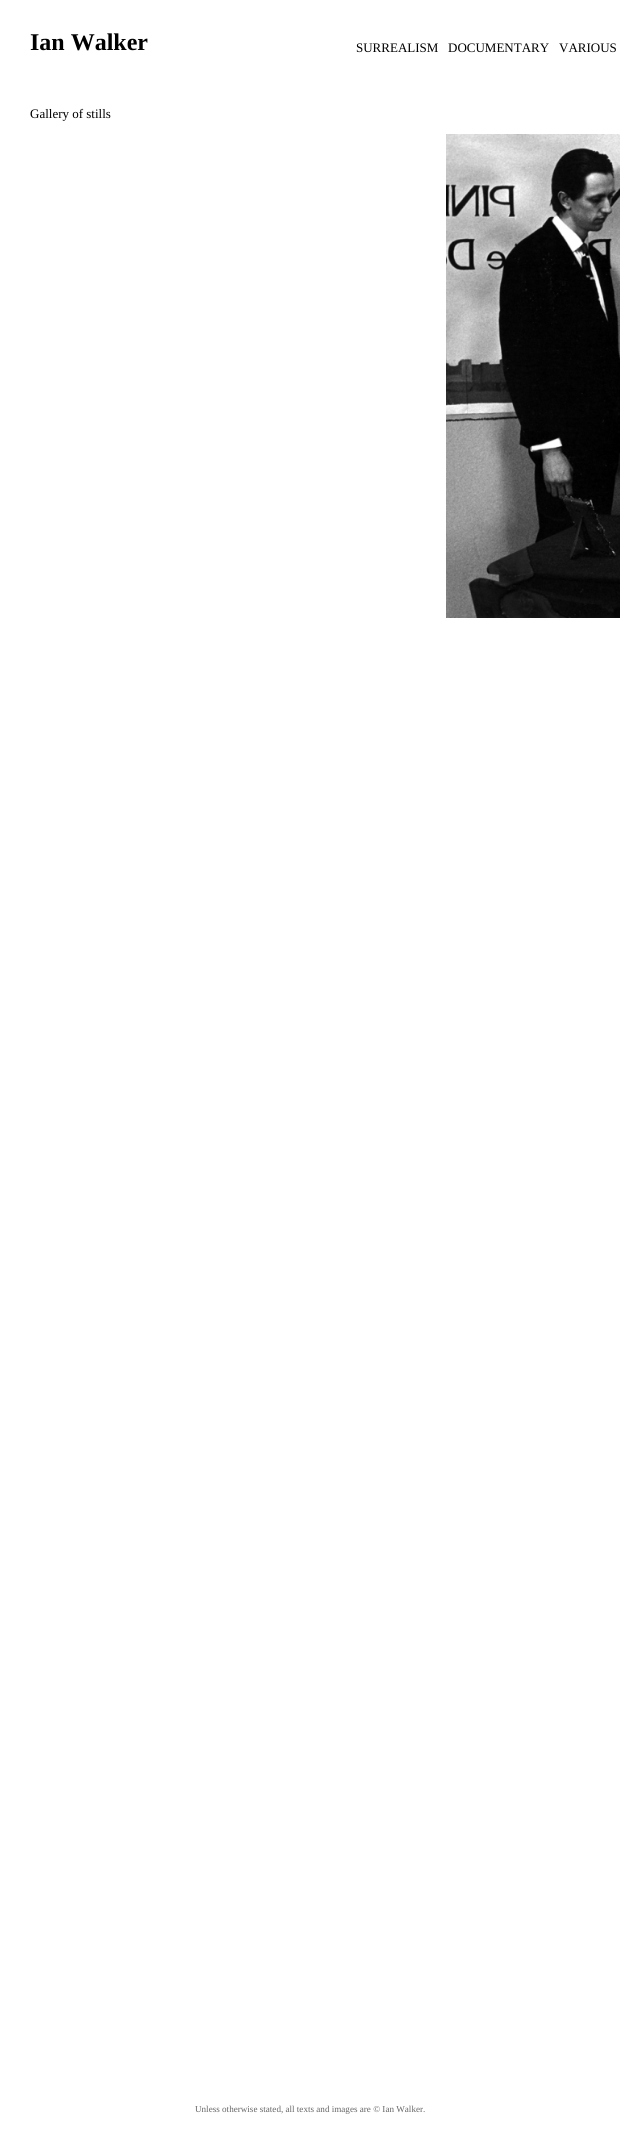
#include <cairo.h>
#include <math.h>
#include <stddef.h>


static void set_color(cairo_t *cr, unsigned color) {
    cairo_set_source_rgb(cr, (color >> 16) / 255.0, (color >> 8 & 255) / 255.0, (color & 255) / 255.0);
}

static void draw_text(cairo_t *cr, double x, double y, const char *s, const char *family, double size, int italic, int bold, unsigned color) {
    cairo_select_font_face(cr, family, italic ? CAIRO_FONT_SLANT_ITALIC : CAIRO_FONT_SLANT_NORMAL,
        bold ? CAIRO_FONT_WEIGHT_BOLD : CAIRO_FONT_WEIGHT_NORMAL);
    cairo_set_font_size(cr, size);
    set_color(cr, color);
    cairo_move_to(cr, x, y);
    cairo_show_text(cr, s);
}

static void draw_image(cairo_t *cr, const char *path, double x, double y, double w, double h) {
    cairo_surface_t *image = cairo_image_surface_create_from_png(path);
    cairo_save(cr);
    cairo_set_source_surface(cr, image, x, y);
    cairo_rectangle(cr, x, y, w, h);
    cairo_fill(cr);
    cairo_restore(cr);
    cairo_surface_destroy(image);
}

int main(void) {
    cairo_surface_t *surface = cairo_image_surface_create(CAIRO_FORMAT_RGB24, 620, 2131);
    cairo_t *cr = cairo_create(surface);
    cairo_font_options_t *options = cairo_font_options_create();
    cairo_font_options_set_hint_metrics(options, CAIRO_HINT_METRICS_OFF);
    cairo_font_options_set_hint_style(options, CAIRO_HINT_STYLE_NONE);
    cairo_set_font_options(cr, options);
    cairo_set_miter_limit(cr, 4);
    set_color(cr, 0xFFFFFF);
    cairo_paint(cr);
    draw_text(cr, 30, 50, "Ian Walker", "Liberation Serif", 24, 0, 1, 0x000000);
    draw_text(cr, 356, 52, "SURREALISM", "Liberation Serif", 13, 0, 0, 0x000000);
    draw_text(cr, 448, 52, "DOCUMENTARY", "Liberation Serif", 13, 0, 0, 0x000000);
    draw_text(cr, 559, 52, "VARIOUS", "Liberation Serif", 13, 0, 0, 0x000000);
    draw_text(cr, 30, 118, "Gallery of stills", "Liberation Serif", 13, 0, 0, 0x000000);
    draw_image(cr, "assets/img1.png", 446, 134, 174, 484);
    draw_text(cr, 195, 2112, "Unless otherwise stated, all texts and images are © Ian Walker.", "Liberation Serif", 9.1, 0, 0, 0x666666);
    cairo_surface_write_to_png(surface, "output.png");
    cairo_font_options_destroy(options);
    cairo_destroy(cr);
    cairo_surface_destroy(surface);
    return 0;
}
